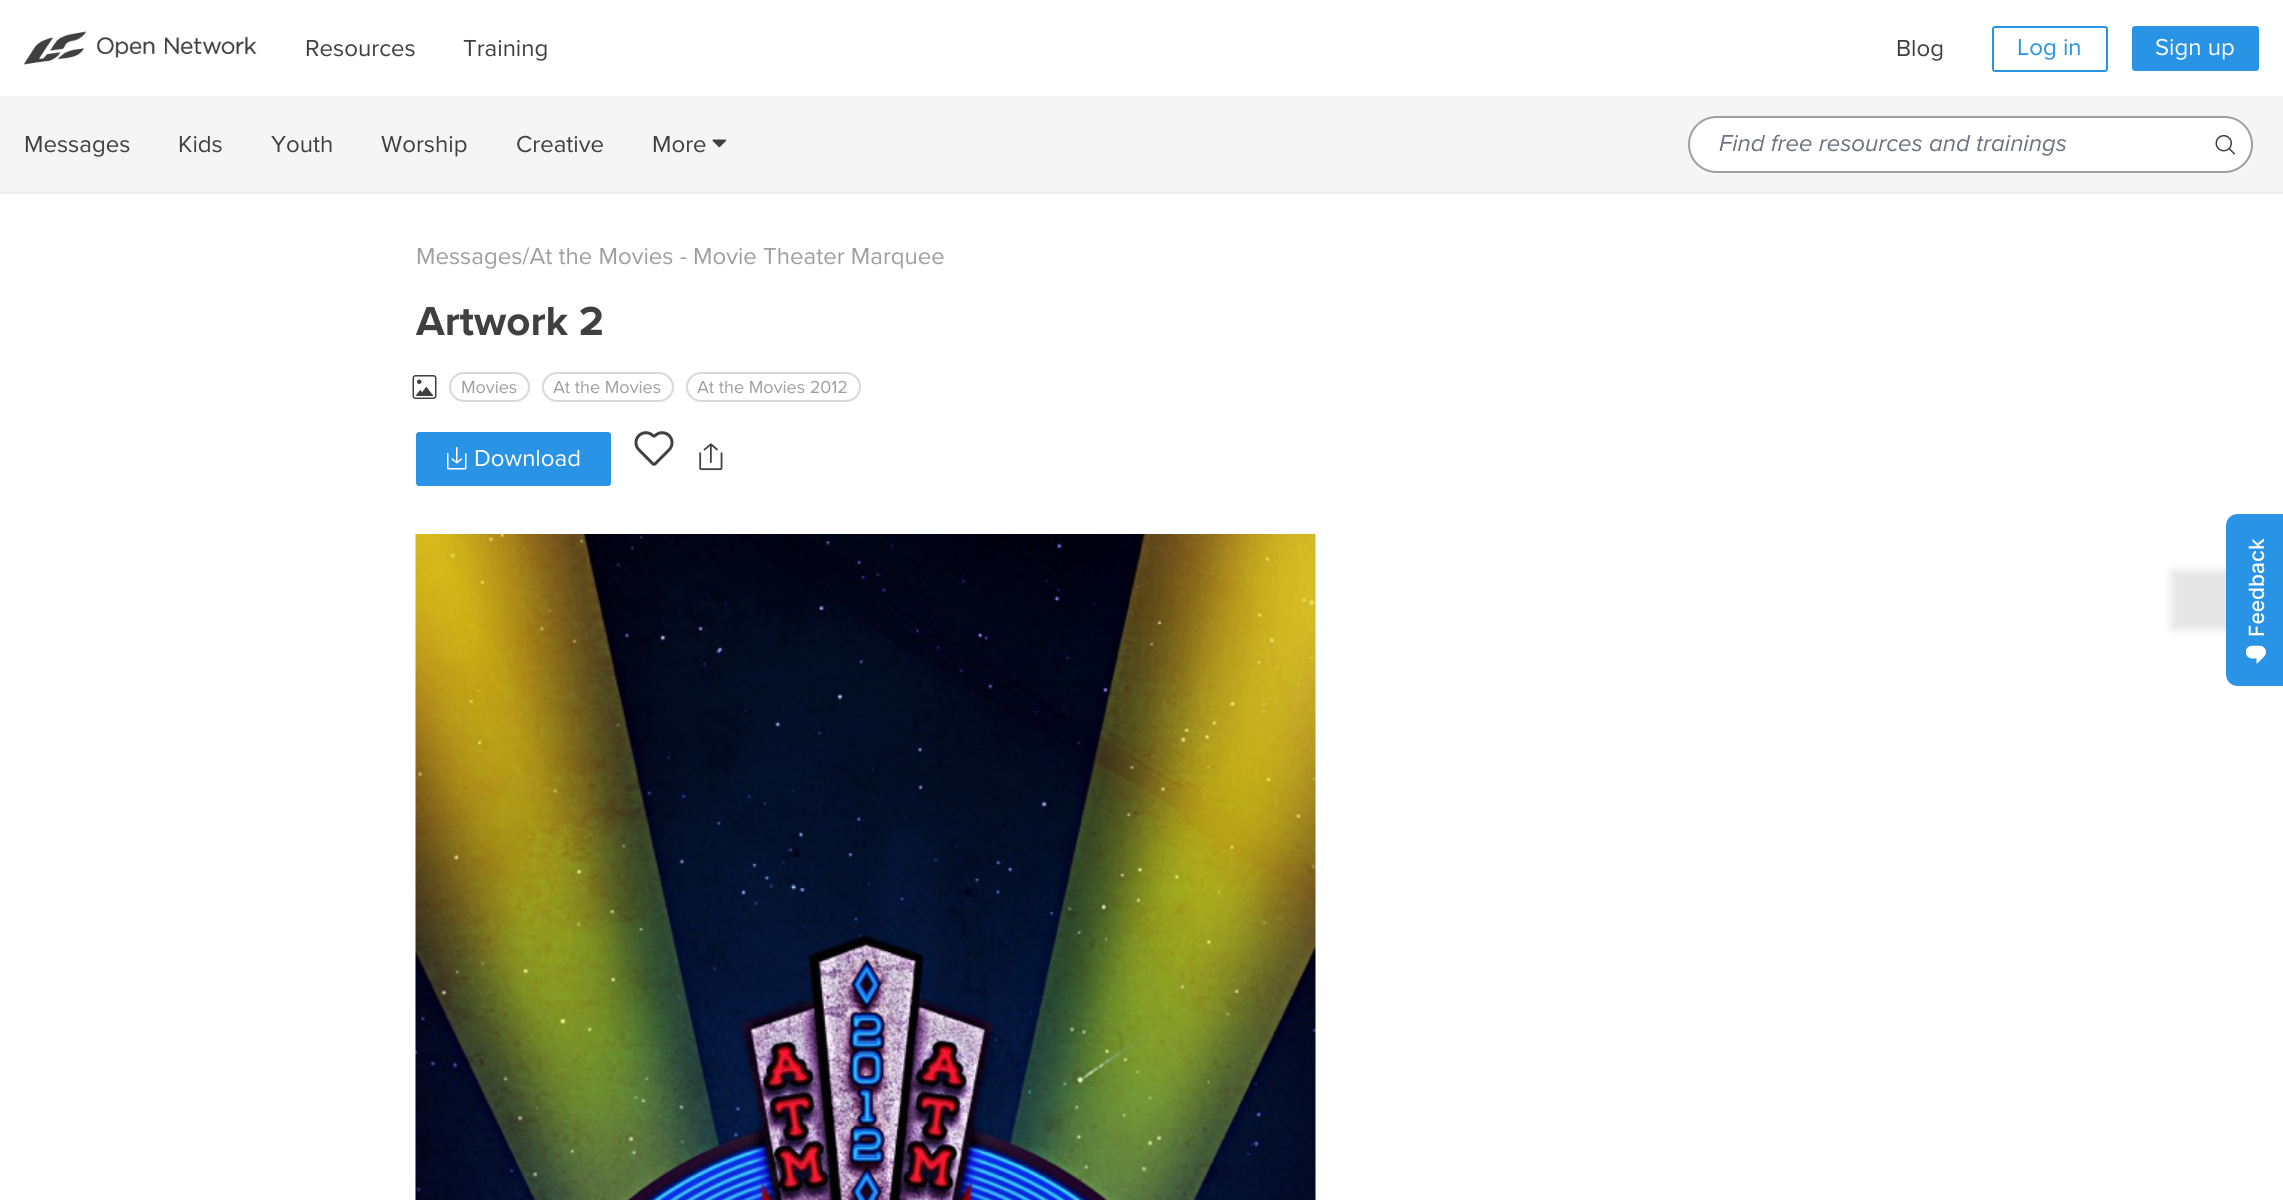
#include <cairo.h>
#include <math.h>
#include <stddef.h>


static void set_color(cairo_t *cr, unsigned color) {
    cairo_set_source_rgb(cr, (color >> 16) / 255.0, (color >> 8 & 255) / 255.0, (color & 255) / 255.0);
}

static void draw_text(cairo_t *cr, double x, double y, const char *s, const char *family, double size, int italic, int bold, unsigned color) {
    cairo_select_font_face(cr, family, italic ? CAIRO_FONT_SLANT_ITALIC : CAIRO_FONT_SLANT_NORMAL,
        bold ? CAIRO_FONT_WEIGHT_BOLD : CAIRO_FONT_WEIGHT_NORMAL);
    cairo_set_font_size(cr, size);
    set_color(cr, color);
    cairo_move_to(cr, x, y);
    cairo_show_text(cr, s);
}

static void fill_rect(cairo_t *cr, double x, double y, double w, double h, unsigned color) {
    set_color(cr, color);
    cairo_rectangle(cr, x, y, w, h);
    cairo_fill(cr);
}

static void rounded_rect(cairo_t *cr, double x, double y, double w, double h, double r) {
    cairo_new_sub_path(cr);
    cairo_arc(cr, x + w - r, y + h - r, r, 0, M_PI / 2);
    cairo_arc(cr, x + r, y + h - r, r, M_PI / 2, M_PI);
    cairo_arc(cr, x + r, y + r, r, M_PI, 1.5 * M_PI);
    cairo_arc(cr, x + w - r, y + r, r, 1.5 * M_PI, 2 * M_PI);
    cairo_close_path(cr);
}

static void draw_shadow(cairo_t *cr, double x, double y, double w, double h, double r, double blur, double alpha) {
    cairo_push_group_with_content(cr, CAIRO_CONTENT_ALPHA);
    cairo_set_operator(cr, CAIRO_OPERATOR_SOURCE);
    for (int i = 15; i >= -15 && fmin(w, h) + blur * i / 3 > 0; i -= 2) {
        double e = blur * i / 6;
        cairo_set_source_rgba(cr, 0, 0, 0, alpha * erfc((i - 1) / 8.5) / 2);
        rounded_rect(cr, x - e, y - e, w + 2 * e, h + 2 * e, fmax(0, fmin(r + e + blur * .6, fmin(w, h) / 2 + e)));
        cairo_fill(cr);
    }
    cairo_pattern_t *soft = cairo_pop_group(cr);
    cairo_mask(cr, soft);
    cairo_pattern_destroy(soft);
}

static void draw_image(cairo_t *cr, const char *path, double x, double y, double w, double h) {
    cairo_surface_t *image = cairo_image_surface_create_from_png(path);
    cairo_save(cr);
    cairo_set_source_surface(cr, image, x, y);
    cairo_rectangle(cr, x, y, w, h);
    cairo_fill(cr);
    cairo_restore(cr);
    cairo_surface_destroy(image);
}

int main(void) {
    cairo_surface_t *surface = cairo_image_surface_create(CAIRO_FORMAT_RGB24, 2283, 1200);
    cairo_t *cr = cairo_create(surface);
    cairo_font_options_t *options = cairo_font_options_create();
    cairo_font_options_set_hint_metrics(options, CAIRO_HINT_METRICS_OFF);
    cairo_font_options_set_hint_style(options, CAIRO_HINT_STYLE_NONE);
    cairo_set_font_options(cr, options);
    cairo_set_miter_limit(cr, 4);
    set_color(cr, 0xFFFFFF);
    cairo_paint(cr);
    draw_image(cr, "assets/img1.png", 24, 31, 233, 34);
    draw_text(cr, 305, 56, "Resources", "Proxima Nova", 24, 0, 0, 0x404041);
    draw_text(cr, 463, 56, "Training", "Proxima Nova", 24, 0, 0, 0x404041);
    draw_text(cr, 1896, 56, "Blog", "Proxima Nova", 24, 0, 0, 0x404041);
    rounded_rect(cr, 1993, 27, 114, 44, 2);
    set_color(cr, 0x2993E5);
    cairo_stroke(cr);
    draw_text(cr, 2017, 55, "Log in", "Proxima Nova", 24, 0, 0, 0x2993E5);
    rounded_rect(cr, 2132, 26, 127, 45, 3);
    cairo_fill(cr);
    draw_text(cr, 2155, 55, "Sign up", "Proxima Nova", 24, 0, 0, 0xFFFFFF);
    fill_rect(cr, 0, 192, 2283, 2, 0xECECEC);
    fill_rect(cr, 0, 96, 2283, 96, 0xF5F5F5);
    draw_text(cr, 24, 152, "Messages", "Proxima Nova", 24, 0, 0, 0x404041);
    draw_text(cr, 178, 152, "Kids", "Proxima Nova", 24, 0, 0, 0x404041);
    draw_text(cr, 271, 152, "Youth", "Proxima Nova", 24, 0, 0, 0x404041);
    draw_text(cr, 381, 152, "Worship", "Proxima Nova", 24, 0, 0, 0x404041);
    draw_text(cr, 516, 152, "Creative", "Proxima Nova", 24, 0, 0, 0x404041);
    draw_text(cr, 652, 152, "More", "Proxima Nova", 24, 0, 0, 0x404041);
    draw_image(cr, "assets/img2.png", 712, 139, 15, 9);
    set_color(cr, 0xFFFFFF);
    rounded_rect(cr, 1689, 117, 563, 55, 27.5);
    cairo_fill_preserve(cr);
    set_color(cr, 0x9F9FA0);
    cairo_stroke(cr);
    draw_text(cr, 1719, 151, "Find free resources and trainings", "Proxima Nova", 24, 1, 0, 0x6B7280);
    draw_image(cr, "assets/img3.png", 2215, 135, 20, 20);
    draw_text(cr, 416, 264, "Messages/At the Movies - Movie Theater Marquee", "Proxima Nova", 24, 0, 0, 0x9F9FA0);
    draw_text(cr, 416, 335, "Artwork 2", "Proxima Nova", 42, 0, 1, 0x404041);
    draw_image(cr, "assets/img4.png", 412, 375, 25, 24);
    rounded_rect(cr, 450, 373, 79, 28, 14);
    set_color(cr, 0xD8D8D9);
    cairo_stroke(cr);
    draw_text(cr, 461, 393, "Movies", "Proxima Nova", 18, 0, 0, 0x9F9FA0);
    rounded_rect(cr, 543, 373, 130, 28, 14);
    set_color(cr, 0xD8D8D9);
    cairo_stroke(cr);
    draw_text(cr, 553, 393, "At the Movies", "Proxima Nova", 18, 0, 0, 0x9F9FA0);
    rounded_rect(cr, 687, 373, 173, 28, 14);
    set_color(cr, 0xD8D8D9);
    cairo_stroke(cr);
    draw_text(cr, 697, 393, "At the Movies 2012", "Proxima Nova", 18, 0, 0, 0x9F9FA0);
    set_color(cr, 0x2993E5);
    rounded_rect(cr, 416, 432, 195, 54, 3);
    cairo_fill(cr);
    draw_image(cr, "assets/img5.png", 447, 447, 20, 23);
    draw_text(cr, 474, 466, "Download", "Proxima Nova", 24, 0, 0, 0xFFFFFF);
    draw_image(cr, "assets/img6.png", 634, 431, 40, 35);
    draw_image(cr, "assets/img7.png", 699, 443, 24, 28);
    draw_image(cr, "assets/img8.png", 415, 534, 901, 666);
    set_color(cr, 0x000000);
    draw_shadow(cr, 2171, 570, 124, 60, 0, 4, 0.1);
    set_color(cr, 0x2993E5);
    cairo_new_path(cr);
    cairo_move_to(cr, 2226, 674);
    cairo_line_to(cr, 2226, 526);
    cairo_curve_to(cr, 2226, 519, 2231, 514, 2238, 514);
    cairo_line_to(cr, 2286, 514);
    cairo_line_to(cr, 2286, 686);
    cairo_line_to(cr, 2238, 686);
    cairo_curve_to(cr, 2231, 686, 2226, 681, 2226, 674);
    cairo_close_path(cr);
    cairo_fill(cr);
    cairo_save(cr);
    cairo_translate(cr, 2264, 637);
    cairo_rotate(cr, -90 * M_PI / 180);
    draw_text(cr, 0, 0, "Feedback", "Inter Medium", 21, 0, 0, 0xFFFFFF);
    cairo_restore(cr);
    draw_image(cr, "assets/img9.png", 2246, 645, 20, 19);
    cairo_surface_write_to_png(surface, "output.png");
    cairo_font_options_destroy(options);
    cairo_destroy(cr);
    cairo_surface_destroy(surface);
    return 0;
}
